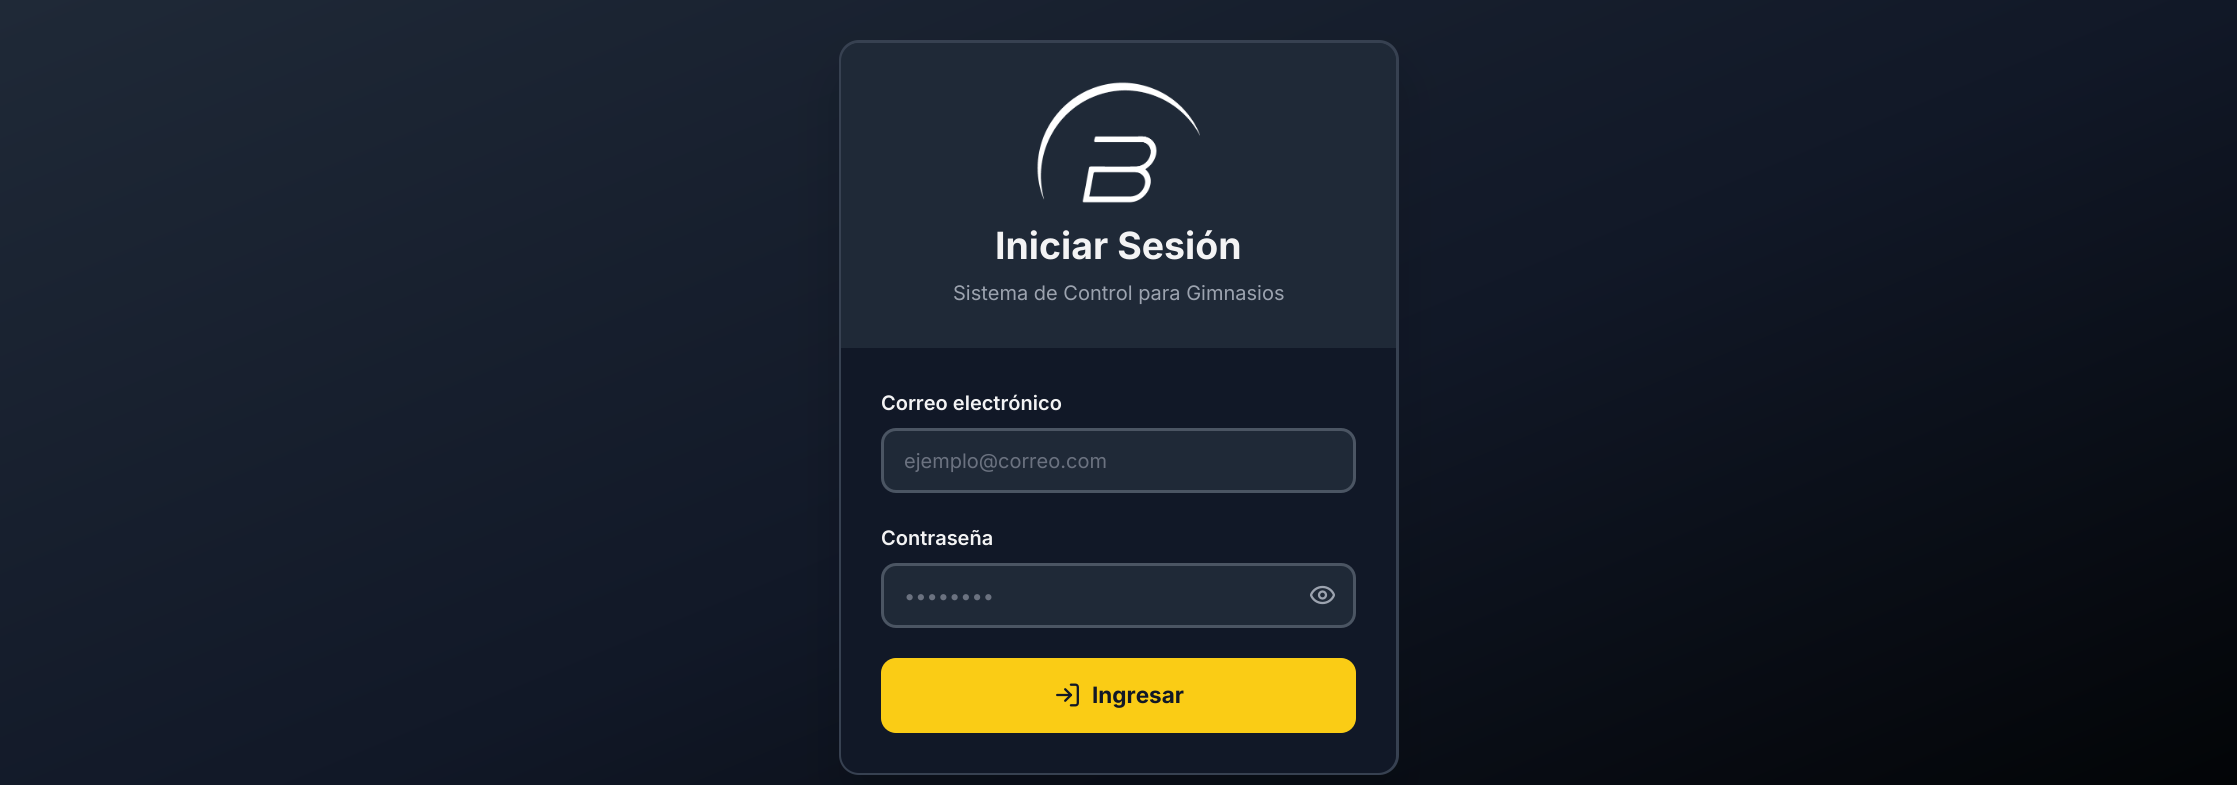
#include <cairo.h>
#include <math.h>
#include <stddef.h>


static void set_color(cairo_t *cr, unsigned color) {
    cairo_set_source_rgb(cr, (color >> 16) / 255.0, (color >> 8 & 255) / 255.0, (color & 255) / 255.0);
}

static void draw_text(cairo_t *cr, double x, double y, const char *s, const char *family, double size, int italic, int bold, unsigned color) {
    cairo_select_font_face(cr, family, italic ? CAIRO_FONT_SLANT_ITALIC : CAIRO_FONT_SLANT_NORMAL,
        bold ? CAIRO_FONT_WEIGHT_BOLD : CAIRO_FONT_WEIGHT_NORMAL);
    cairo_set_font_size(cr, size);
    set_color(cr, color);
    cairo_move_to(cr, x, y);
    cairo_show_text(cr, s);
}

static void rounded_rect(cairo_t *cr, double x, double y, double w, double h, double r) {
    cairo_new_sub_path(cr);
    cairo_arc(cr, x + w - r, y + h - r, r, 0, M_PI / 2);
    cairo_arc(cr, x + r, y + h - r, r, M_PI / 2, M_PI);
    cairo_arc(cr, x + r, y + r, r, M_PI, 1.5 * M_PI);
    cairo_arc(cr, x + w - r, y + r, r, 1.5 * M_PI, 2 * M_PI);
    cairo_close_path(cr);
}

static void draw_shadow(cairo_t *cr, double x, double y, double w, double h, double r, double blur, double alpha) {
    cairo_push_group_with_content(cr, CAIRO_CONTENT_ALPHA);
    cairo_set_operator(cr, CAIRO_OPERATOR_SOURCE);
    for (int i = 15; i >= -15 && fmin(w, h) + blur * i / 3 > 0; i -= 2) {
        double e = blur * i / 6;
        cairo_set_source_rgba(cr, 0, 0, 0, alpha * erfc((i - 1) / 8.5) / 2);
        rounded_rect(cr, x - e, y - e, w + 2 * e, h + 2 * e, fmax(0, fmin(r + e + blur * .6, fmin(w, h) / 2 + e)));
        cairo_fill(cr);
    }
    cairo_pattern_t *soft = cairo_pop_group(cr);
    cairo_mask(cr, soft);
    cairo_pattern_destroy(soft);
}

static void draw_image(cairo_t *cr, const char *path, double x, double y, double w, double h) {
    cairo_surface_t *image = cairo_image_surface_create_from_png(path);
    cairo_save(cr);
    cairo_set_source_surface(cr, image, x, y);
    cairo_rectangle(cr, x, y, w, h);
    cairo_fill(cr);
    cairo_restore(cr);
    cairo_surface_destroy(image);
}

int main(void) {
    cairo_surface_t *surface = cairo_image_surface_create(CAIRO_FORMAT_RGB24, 2237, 785);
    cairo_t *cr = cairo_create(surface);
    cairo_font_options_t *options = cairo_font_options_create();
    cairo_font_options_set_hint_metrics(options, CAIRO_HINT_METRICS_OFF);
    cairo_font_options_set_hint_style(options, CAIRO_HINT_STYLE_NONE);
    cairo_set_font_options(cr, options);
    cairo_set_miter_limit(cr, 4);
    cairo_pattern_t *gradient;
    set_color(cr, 0xFFFFFF);
    cairo_paint(cr);
    gradient = cairo_pattern_create_linear(789, -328, 1448, 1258);
    cairo_pattern_add_color_stop_rgba(gradient, 0, 0.122, 0.161, 0.216, 1);
    cairo_pattern_add_color_stop_rgba(gradient, 0.5, 0.067, 0.094, 0.153, 1);
    cairo_pattern_add_color_stop_rgba(gradient, 1, 0, 0.004, 0.004, 1);
    cairo_set_source(cr, gradient);
    cairo_pattern_destroy(gradient);
    cairo_rectangle(cr, 0, 0, 2237, 785);
    cairo_fill(cr);
    set_color(cr, 0x000000);
    draw_shadow(cr, 854, 86, 530, 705, 5, 31, 0.25);
    set_color(cr, 0x1F2937);
    rounded_rect(cr, 840.5, 41.5, 557, 732, 18.5);
    cairo_fill_preserve(cr);
    set_color(cr, 0x374151);
    cairo_set_line_width(cr, 3);
    cairo_stroke(cr);
    set_color(cr, 0x1F2937);
    cairo_new_path(cr);
    cairo_move_to(cr, 859, 43);
    cairo_line_to(cr, 1378, 43);
    cairo_curve_to(cr, 1388, 43, 1396, 51, 1396, 61);
    cairo_line_to(cr, 1396, 348);
    cairo_line_to(cr, 841, 348);
    cairo_line_to(cr, 841, 61);
    cairo_curve_to(cr, 841, 51, 849, 43, 859, 43);
    cairo_close_path(cr);
    cairo_fill(cr);
    draw_image(cr, "assets/img1.png", 1037, 82, 163, 121);
    draw_text(cr, 995, 259, "Iniciar Sesión", "Inter", 37.5, 0, 1, 0xF3F3F4);
    draw_text(cr, 953, 300, "Sistema de Control para Gimnasios", "Inter", 20, 0, 0, 0x9CA3AF);
    set_color(cr, 0x111827);
    cairo_new_path(cr);
    cairo_move_to(cr, 841, 348);
    cairo_line_to(cr, 1396, 348);
    cairo_line_to(cr, 1396, 755);
    cairo_curve_to(cr, 1396, 765, 1388, 773, 1378, 773);
    cairo_line_to(cr, 859, 773);
    cairo_curve_to(cr, 849, 773, 841, 765, 841, 755);
    cairo_close_path(cr);
    cairo_fill(cr);
    draw_text(cr, 881, 410, "Correo electrónico", "Inter SemiBold", 20, 0, 0, 0xF3F3F4);
    set_color(cr, 0x1F2937);
    rounded_rect(cr, 882.5, 429.5, 472, 62, 13.5);
    cairo_fill_preserve(cr);
    set_color(cr, 0x4B5563);
    cairo_stroke(cr);
    draw_text(cr, 904, 468, "ejemplo@correo.com", "Inter", 20, 0, 0, 0x6B7280);
    draw_text(cr, 881, 545, "Contraseña", "Inter SemiBold", 20, 0, 0, 0xF3F3F4);
    set_color(cr, 0x1F2937);
    rounded_rect(cr, 882.5, 564.5, 472, 62, 13.5);
    cairo_fill_preserve(cr);
    set_color(cr, 0x4B5563);
    cairo_stroke(cr);
    draw_text(cr, 904, 603, "••••••••", "Inter", 20, 0, 0, 0x6B7280);
    draw_image(cr, "assets/img2.png", 1310, 585, 25, 20);
    set_color(cr, 0xFACC15);
    rounded_rect(cr, 881, 658, 475, 75, 15);
    cairo_fill(cr);
    draw_image(cr, "assets/img3.png", 1056, 683, 23, 24);
    draw_text(cr, 1092, 703, "Ingresar", "Inter", 22.5, 0, 1, 0x111827);
    cairo_surface_write_to_png(surface, "output.png");
    cairo_font_options_destroy(options);
    cairo_destroy(cr);
    cairo_surface_destroy(surface);
    return 0;
}
